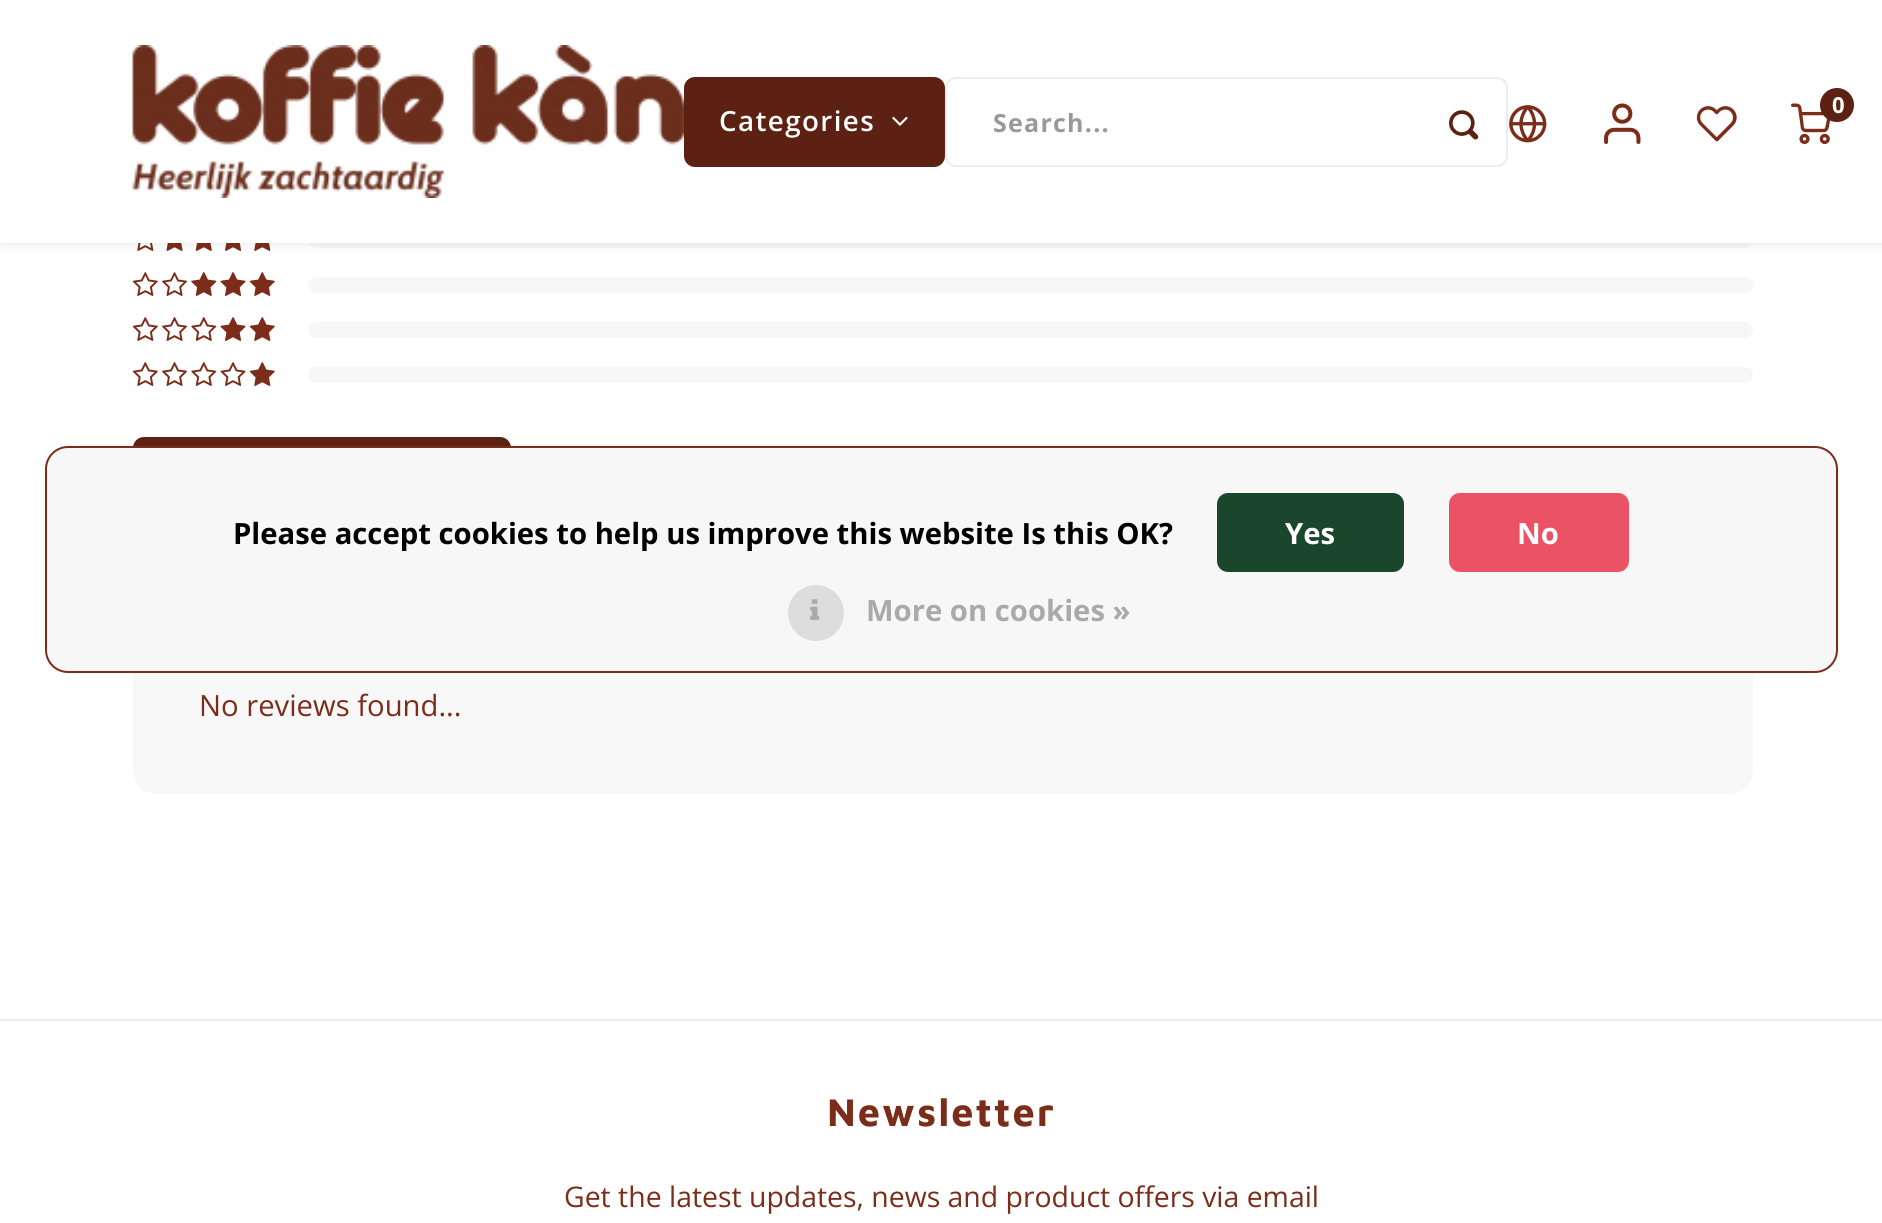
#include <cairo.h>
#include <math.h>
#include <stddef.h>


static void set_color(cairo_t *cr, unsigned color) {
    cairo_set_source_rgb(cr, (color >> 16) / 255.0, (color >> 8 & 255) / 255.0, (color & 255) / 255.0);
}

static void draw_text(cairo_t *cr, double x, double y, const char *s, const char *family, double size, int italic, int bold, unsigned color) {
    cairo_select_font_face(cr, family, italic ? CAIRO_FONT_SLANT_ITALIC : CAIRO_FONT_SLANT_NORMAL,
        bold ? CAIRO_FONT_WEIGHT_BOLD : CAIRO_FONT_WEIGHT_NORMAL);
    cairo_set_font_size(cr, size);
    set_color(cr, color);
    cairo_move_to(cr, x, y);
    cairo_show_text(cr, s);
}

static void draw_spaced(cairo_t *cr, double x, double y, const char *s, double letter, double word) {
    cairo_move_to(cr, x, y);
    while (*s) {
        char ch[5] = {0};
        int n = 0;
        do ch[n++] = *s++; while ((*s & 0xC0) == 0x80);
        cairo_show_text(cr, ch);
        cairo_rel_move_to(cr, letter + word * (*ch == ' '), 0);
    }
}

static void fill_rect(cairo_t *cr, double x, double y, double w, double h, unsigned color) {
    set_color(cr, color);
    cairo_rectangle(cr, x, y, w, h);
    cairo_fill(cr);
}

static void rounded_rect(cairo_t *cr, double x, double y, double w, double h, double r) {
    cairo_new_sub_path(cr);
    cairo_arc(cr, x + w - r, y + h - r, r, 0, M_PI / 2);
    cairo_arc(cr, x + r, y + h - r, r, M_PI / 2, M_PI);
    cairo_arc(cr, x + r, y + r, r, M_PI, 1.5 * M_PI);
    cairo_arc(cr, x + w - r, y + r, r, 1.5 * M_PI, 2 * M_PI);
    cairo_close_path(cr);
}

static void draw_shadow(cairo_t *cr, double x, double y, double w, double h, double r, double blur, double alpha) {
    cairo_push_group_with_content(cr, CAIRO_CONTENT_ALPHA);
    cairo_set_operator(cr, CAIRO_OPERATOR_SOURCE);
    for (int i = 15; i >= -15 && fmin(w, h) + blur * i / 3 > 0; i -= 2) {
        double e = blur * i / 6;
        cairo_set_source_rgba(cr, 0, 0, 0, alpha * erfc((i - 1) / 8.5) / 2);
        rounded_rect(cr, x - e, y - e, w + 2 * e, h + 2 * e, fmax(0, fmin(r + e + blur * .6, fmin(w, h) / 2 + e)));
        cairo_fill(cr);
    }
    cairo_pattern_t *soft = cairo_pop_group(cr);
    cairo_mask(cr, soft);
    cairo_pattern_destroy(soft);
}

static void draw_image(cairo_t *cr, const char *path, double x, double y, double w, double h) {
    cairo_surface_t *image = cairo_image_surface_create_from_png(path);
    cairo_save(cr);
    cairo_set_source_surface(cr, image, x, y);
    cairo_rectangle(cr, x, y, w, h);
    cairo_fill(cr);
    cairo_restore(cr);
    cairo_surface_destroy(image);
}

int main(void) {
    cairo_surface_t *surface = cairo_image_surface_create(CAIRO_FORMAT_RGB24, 1882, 1223);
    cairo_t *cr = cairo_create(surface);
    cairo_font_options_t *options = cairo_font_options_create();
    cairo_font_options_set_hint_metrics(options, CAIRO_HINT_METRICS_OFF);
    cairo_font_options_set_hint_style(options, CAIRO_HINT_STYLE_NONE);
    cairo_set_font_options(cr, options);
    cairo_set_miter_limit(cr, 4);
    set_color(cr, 0xFFFFFF);
    cairo_paint(cr);
    draw_image(cr, "assets/img9.png", 137, 243, 17, 8);
    draw_image(cr, "assets/img10.png", 166, 243, 17, 8);
    draw_image(cr, "assets/img11.png", 195, 243, 17, 8);
    draw_image(cr, "assets/img12.png", 225, 243, 16, 8);
    draw_image(cr, "assets/img13.png", 254, 243, 17, 8);
    set_color(cr, 0xF7F7F7);
    rounded_rect(cr, 308, 232, 1445, 16, 8);
    cairo_fill(cr);
    set_color(cr, 0x000000);
    draw_shadow(cr, 0, 2, 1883, 243, 0, 4.5, 0.08);
    fill_rect(cr, 0, 0, 1882, 243, 0xFFFFFF);
    draw_image(cr, "assets/img1.png", 132, 45, 552, 153);
    draw_image(cr, "assets/img2.png", 1509, 105, 38, 38);
    draw_image(cr, "assets/img3.png", 1604, 103, 37, 41);
    draw_image(cr, "assets/img4.png", 1696, 106, 41, 36);
    draw_image(cr, "assets/img5.png", 1791, 103, 40, 41);
    set_color(cr, 0x5C2112);
    cairo_arc(cr, 1837, 105, 17, 0, 2 * M_PI);
    cairo_fill(cr);
    draw_text(cr, 1832, 113, "0", "Open Sans", 22, 0, 1, 0xFFFFFF);
    set_color(cr, 0x5C2112);
    rounded_rect(cr, 684, 77, 261, 90, 11);
    cairo_fill(cr);
    cairo_select_font_face(cr, "Open Sans SemiBold", CAIRO_FONT_SLANT_NORMAL, CAIRO_FONT_WEIGHT_NORMAL);
    cairo_set_font_size(cr, 27.75);
    set_color(cr, 0xFFFFFF);
    draw_spaced(cr, 719, 131, "Categories", 1.4, 0);
    draw_image(cr, "assets/img6.png", 892, 116, 16, 10);
    rounded_rect(cr, 946, 78, 561, 88, 10);
    set_color(cr, 0xEDEDED);
    cairo_stroke(cr);
    cairo_select_font_face(cr, "Open Sans", CAIRO_FONT_SLANT_NORMAL, CAIRO_FONT_WEIGHT_BOLD);
    cairo_set_font_size(cr, 25);
    set_color(cr, 0x999999);
    draw_spaced(cr, 993, 132, "Search...", 1.25, 0);
    draw_image(cr, "assets/img7.png", 1449, 110, 30, 30);
    set_color(cr, 0x5C2112);
    rounded_rect(cr, 133, 437, 378, 112, 11);
    cairo_fill(cr);
    set_color(cr, 0xF8F8F8);
    rounded_rect(cr, 133, 617, 1620, 177, 23);
    cairo_fill(cr);
    set_color(cr, 0xF7F7F7);
    rounded_rect(cr, 46, 447, 1791, 225, 22);
    cairo_fill_preserve(cr);
    set_color(cr, 0x7B2D19);
    cairo_stroke(cr);
    draw_text(cr, 233, 544, "Please accept cookies to help us improve this website Is this OK?", "Open Sans", 29.25, 0, 1, 0x000000);
    set_color(cr, 0x1A472B);
    rounded_rect(cr, 1217, 493, 187, 79, 11);
    cairo_fill(cr);
    draw_text(cr, 1285, 544, "Yes", "Open Sans", 29.25, 0, 1, 0xFFFFFF);
    set_color(cr, 0xEB5265);
    rounded_rect(cr, 1449, 493, 180, 79, 11);
    cairo_fill(cr);
    draw_text(cr, 1517, 544, "No", "Open Sans", 29.25, 0, 1, 0xFFFFFF);
    set_color(cr, 0xDDDDDD);
    cairo_new_path(cr);
    cairo_arc(cr, 816, 613, 28, 0, 2 * M_PI);
    cairo_fill(cr);
    draw_image(cr, "assets/img8.png", 810, 599, 10, 21);
    draw_text(cr, 866, 621, "More on cookies »", "Open Sans", 29.25, 0, 1, 0xAAAAAA);
    draw_image(cr, "assets/img14.png", 132, 272, 26, 24);
    draw_image(cr, "assets/img15.png", 162, 272, 25, 24);
    draw_image(cr, "assets/img16.png", 191, 272, 26, 24);
    draw_image(cr, "assets/img17.png", 220, 272, 26, 24);
    draw_image(cr, "assets/img18.png", 249, 272, 26, 24);
    set_color(cr, 0xF7F7F7);
    rounded_rect(cr, 308, 277, 1445, 16, 8);
    cairo_fill(cr);
    draw_image(cr, "assets/img14.png", 132, 317, 26, 24);
    draw_image(cr, "assets/img15.png", 162, 317, 25, 24);
    draw_image(cr, "assets/img19.png", 191, 317, 26, 24);
    draw_image(cr, "assets/img17.png", 220, 317, 26, 24);
    draw_image(cr, "assets/img18.png", 249, 317, 26, 24);
    rounded_rect(cr, 308, 322, 1445, 16, 8);
    cairo_fill(cr);
    draw_image(cr, "assets/img14.png", 132, 362, 26, 24);
    draw_image(cr, "assets/img15.png", 162, 362, 25, 24);
    draw_image(cr, "assets/img19.png", 191, 362, 26, 24);
    draw_image(cr, "assets/img20.png", 220, 362, 26, 24);
    draw_image(cr, "assets/img18.png", 249, 362, 26, 24);
    rounded_rect(cr, 308, 367, 1445, 16, 8);
    cairo_fill(cr);
    draw_text(cr, 199, 716, "No reviews found...", "Open Sans", 29.25, 0, 0, 0x7B2D19);
    fill_rect(cr, 0, 1019, 1882, 2, 0xEDEDED);
    cairo_select_font_face(cr, "Maven Pro", CAIRO_FONT_SLANT_NORMAL, CAIRO_FONT_WEIGHT_BOLD);
    cairo_set_font_size(cr, 39.75);
    set_color(cr, 0x7B2D19);
    draw_spaced(cr, 827, 1126, "Newsletter", 2, 0);
    draw_text(cr, 564, 1207, "Get the latest updates, news and product offers via email", "Open Sans", 28.4, 0, 0, 0x7B2D19);
    cairo_surface_write_to_png(surface, "output.png");
    cairo_font_options_destroy(options);
    cairo_destroy(cr);
    cairo_surface_destroy(surface);
    return 0;
}
